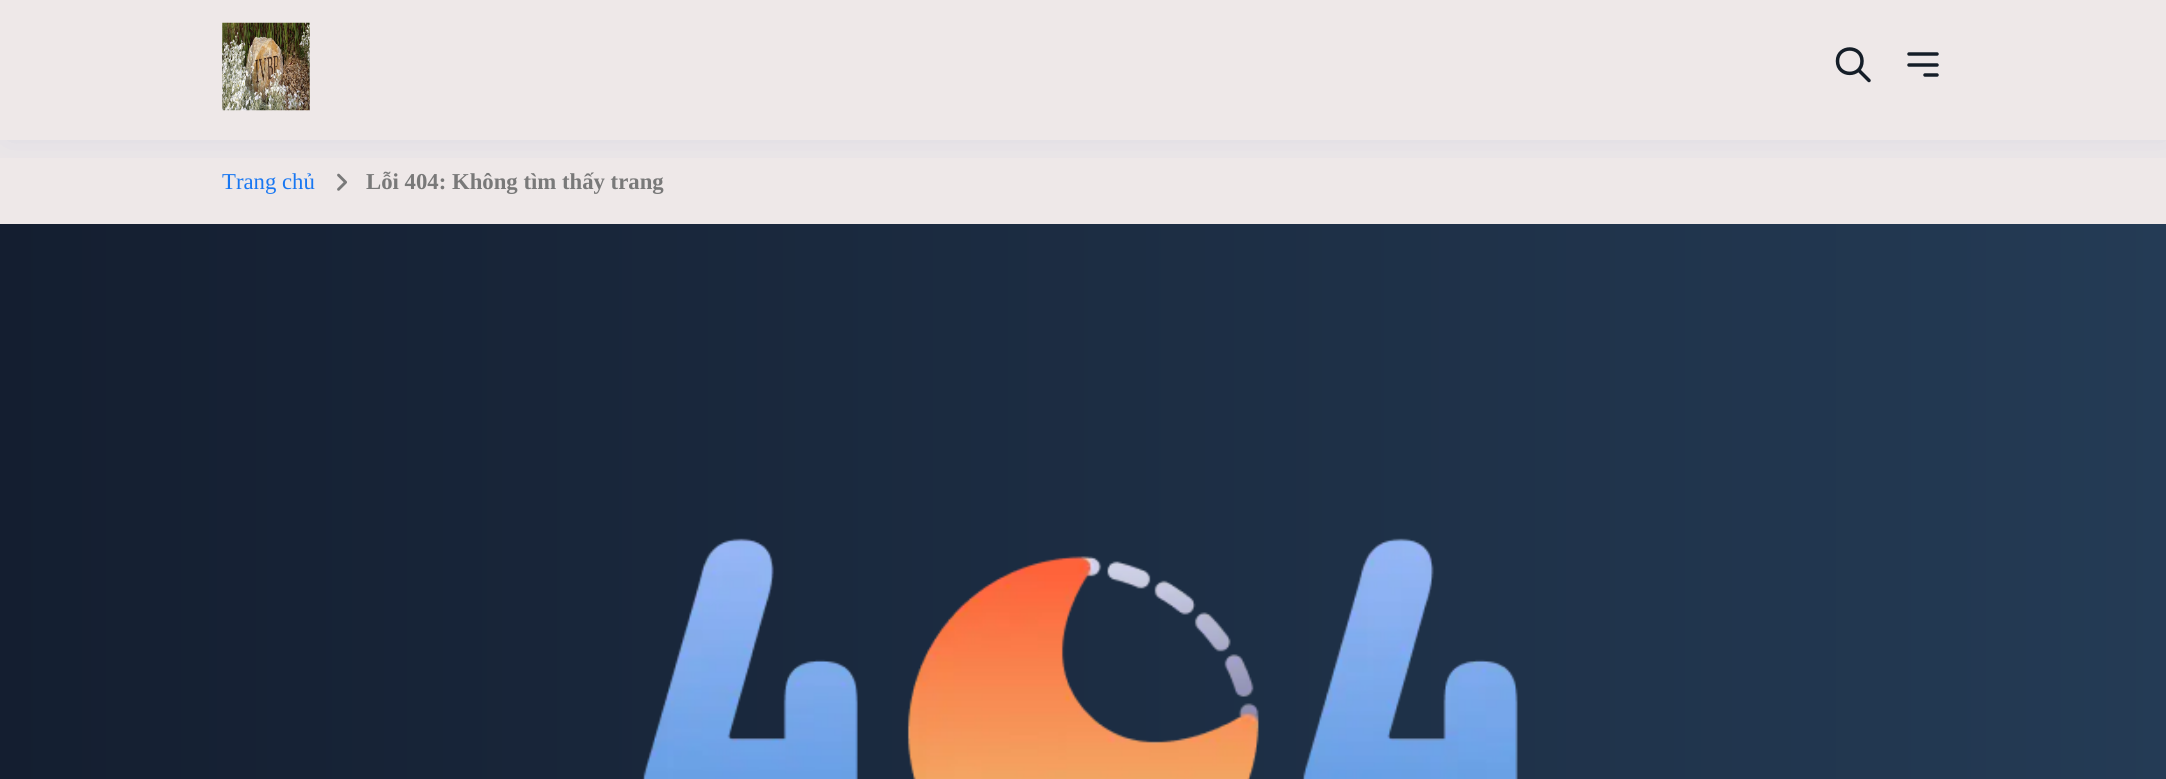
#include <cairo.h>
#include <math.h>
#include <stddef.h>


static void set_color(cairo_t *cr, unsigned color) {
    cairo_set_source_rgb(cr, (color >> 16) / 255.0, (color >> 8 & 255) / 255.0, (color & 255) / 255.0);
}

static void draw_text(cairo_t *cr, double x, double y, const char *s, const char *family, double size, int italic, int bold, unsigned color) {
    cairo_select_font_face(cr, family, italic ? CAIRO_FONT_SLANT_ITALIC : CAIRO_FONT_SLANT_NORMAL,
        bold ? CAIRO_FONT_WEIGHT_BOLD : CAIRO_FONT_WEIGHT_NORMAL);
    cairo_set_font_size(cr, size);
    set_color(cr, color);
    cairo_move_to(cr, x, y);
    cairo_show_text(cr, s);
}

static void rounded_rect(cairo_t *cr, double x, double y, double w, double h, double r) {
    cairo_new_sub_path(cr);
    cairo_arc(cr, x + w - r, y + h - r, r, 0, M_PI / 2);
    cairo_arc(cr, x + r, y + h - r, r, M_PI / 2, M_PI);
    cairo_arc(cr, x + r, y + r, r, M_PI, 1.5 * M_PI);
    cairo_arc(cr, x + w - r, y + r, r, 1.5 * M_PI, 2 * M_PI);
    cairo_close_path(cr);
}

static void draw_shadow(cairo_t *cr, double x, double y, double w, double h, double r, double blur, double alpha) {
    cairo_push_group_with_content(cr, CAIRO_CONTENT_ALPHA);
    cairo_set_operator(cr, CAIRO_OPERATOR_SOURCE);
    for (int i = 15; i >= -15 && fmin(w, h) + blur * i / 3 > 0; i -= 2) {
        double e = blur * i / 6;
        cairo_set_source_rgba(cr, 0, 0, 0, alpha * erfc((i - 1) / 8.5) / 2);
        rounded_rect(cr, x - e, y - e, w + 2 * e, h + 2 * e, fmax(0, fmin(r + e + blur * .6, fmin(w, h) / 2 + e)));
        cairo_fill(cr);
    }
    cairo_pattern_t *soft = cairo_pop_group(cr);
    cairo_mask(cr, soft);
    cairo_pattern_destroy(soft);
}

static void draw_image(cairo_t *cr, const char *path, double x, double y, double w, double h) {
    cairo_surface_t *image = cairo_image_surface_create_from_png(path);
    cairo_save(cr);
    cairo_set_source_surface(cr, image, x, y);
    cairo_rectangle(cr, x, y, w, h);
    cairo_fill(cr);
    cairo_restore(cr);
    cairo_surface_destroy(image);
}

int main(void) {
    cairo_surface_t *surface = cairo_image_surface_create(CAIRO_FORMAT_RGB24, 2166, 779);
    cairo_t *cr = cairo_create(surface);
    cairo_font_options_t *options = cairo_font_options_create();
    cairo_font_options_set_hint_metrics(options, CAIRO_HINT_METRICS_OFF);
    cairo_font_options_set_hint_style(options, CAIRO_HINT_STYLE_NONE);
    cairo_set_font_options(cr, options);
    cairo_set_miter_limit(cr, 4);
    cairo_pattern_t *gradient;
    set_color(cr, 0xEEE8E8);
    cairo_paint(cr);
    draw_image(cr, "assets/img2.png", 337, 173, 10, 18);
    cairo_save(cr);
    cairo_rectangle(cr, 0, 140, 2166, 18);
    cairo_clip(cr);
    set_color(cr, 0x1C4CBA);
    draw_shadow(cr, 4, 0, 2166, 140, 0, 21, 0.1);
    cairo_restore(cr);
    draw_image(cr, "assets/img1.png", 222, 22, 88, 89);
    cairo_new_path(cr);
    cairo_move_to(cr, 1869, 80.5);
    cairo_line_to(cr, 1858.5, 70);
    cairo_move_to(cr, 1862, 61);
    cairo_curve_to(cr, 1862, 77.5, 1837.5, 77.5, 1837.5, 61);
    cairo_curve_to(cr, 1837.5, 45, 1862, 45, 1862, 61);
    cairo_close_path(cr);
    set_color(cr, 0x151E28);
    cairo_set_line_width(cr, 3.5);
    cairo_set_line_cap(cr, CAIRO_LINE_CAP_ROUND);
    cairo_set_line_join(cr, CAIRO_LINE_JOIN_ROUND);
    cairo_stroke(cr);
    cairo_new_path(cr);
    cairo_move_to(cr, 1909, 54);
    cairo_line_to(cr, 1937, 54);
    cairo_move_to(cr, 1909, 65);
    cairo_line_to(cr, 1937, 65);
    cairo_move_to(cr, 1925, 75);
    cairo_line_to(cr, 1937, 75);
    cairo_stroke(cr);
    draw_text(cr, 222, 189, "Trang chủ", "Liberation Serif", 22.75, 0, 0, 0x1877F2);
    draw_text(cr, 366, 189, "Lỗi 404: Không tìm thấy trang", "Liberation Serif", 22.75, 0, 1, 0x797979);
    gradient = cairo_pattern_create_linear(0, 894, 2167, 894);
    cairo_pattern_add_color_stop_rgba(gradient, 0, 0.078, 0.118, 0.188, 1);
    cairo_pattern_add_color_stop_rgba(gradient, 1, 0.141, 0.231, 0.333, 1);
    cairo_set_source(cr, gradient);
    cairo_pattern_destroy(gradient);
    cairo_rectangle(cr, 0, 224, 2166, 555);
    cairo_fill(cr);
    draw_image(cr, "assets/img3.png", 642, 538, 876, 241);
    cairo_surface_write_to_png(surface, "output.png");
    cairo_font_options_destroy(options);
    cairo_destroy(cr);
    cairo_surface_destroy(surface);
    return 0;
}
